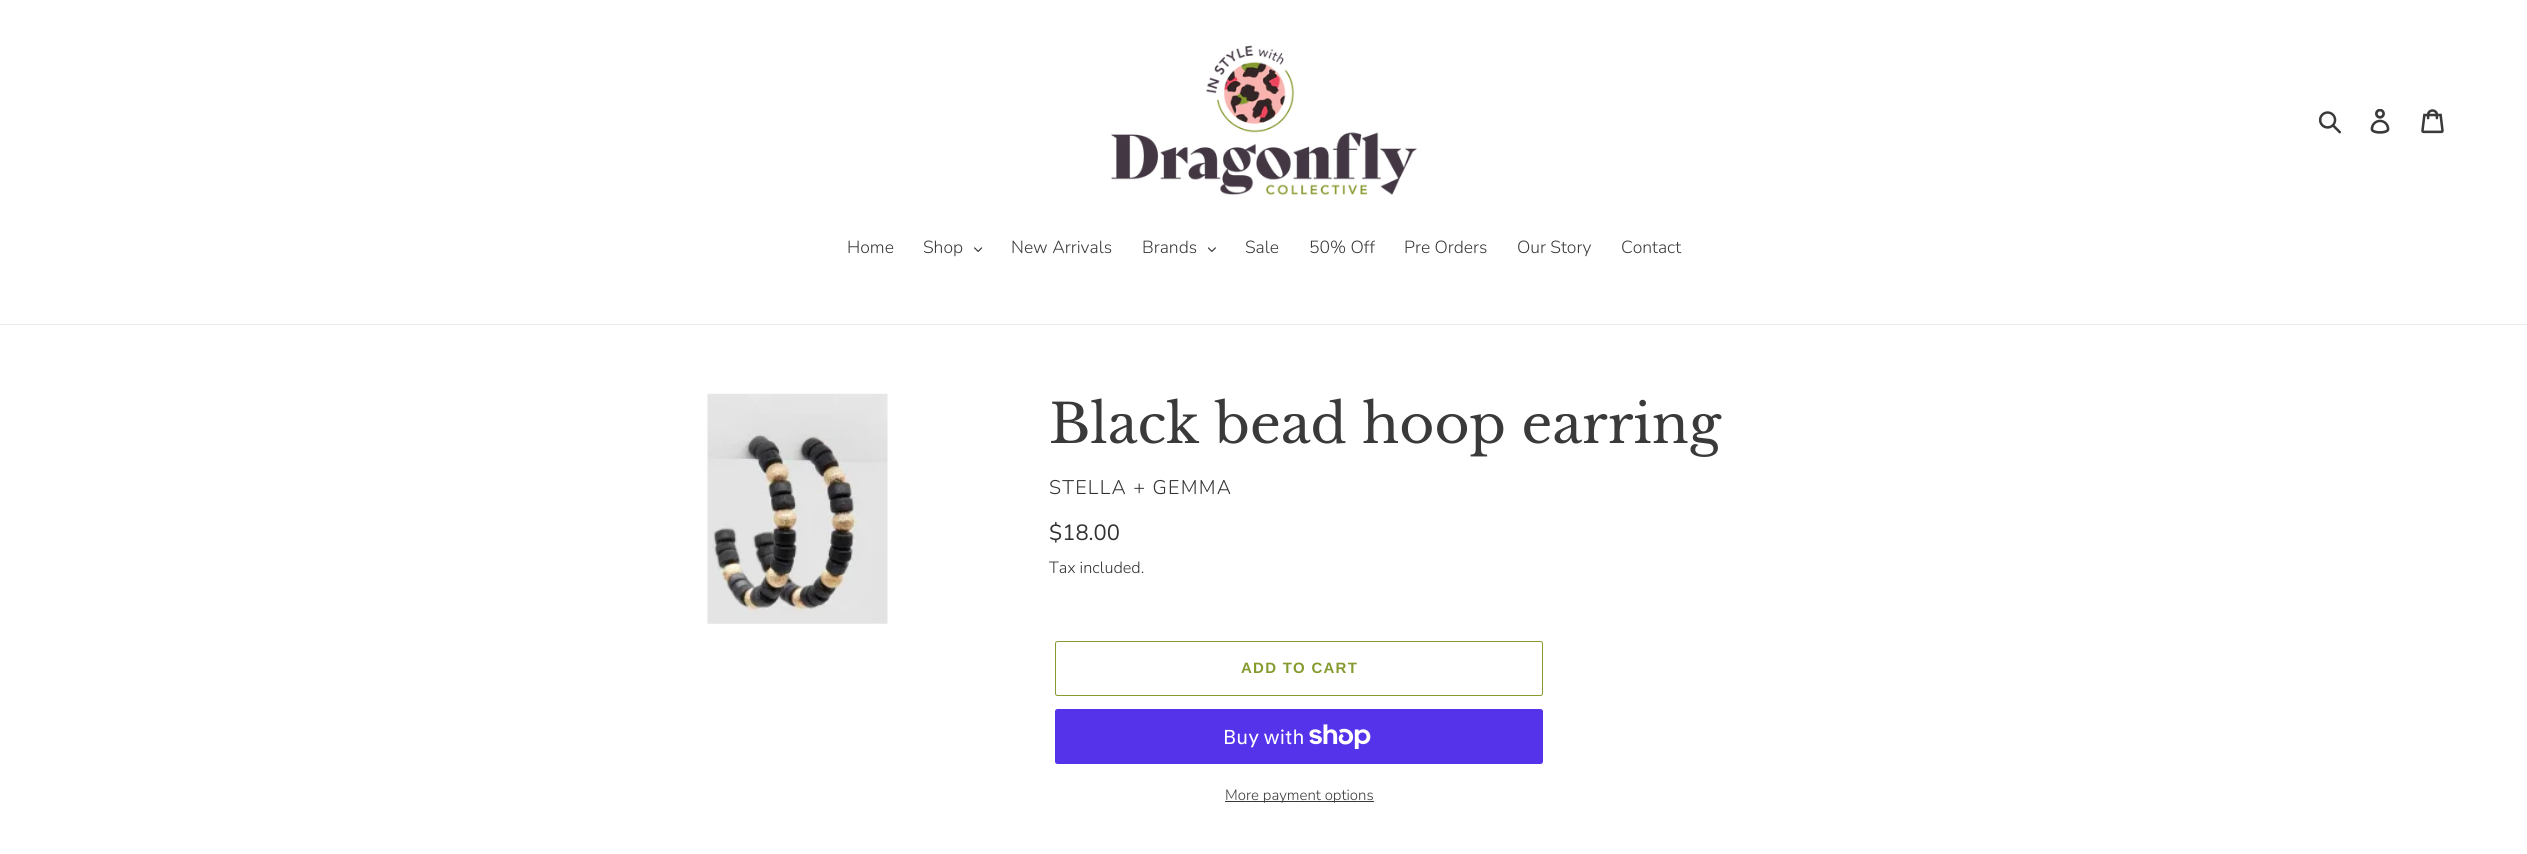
#include <cairo.h>
#include <math.h>
#include <stddef.h>


static void set_color(cairo_t *cr, unsigned color) {
    cairo_set_source_rgb(cr, (color >> 16) / 255.0, (color >> 8 & 255) / 255.0, (color & 255) / 255.0);
}

static void draw_text(cairo_t *cr, double x, double y, const char *s, const char *family, double size, int italic, int bold, unsigned color) {
    cairo_select_font_face(cr, family, italic ? CAIRO_FONT_SLANT_ITALIC : CAIRO_FONT_SLANT_NORMAL,
        bold ? CAIRO_FONT_WEIGHT_BOLD : CAIRO_FONT_WEIGHT_NORMAL);
    cairo_set_font_size(cr, size);
    set_color(cr, color);
    cairo_move_to(cr, x, y);
    cairo_show_text(cr, s);
}

static void draw_spaced(cairo_t *cr, double x, double y, const char *s, double letter, double word) {
    cairo_move_to(cr, x, y);
    while (*s) {
        char ch[5] = {0};
        int n = 0;
        do ch[n++] = *s++; while ((*s & 0xC0) == 0x80);
        cairo_show_text(cr, ch);
        cairo_rel_move_to(cr, letter + word * (*ch == ' '), 0);
    }
}

static void fill_rect(cairo_t *cr, double x, double y, double w, double h, unsigned color) {
    set_color(cr, color);
    cairo_rectangle(cr, x, y, w, h);
    cairo_fill(cr);
}

static void rounded_rect(cairo_t *cr, double x, double y, double w, double h, double r) {
    cairo_new_sub_path(cr);
    cairo_arc(cr, x + w - r, y + h - r, r, 0, M_PI / 2);
    cairo_arc(cr, x + r, y + h - r, r, M_PI / 2, M_PI);
    cairo_arc(cr, x + r, y + r, r, M_PI, 1.5 * M_PI);
    cairo_arc(cr, x + w - r, y + r, r, 1.5 * M_PI, 2 * M_PI);
    cairo_close_path(cr);
}

static void draw_image(cairo_t *cr, const char *path, double x, double y, double w, double h) {
    cairo_surface_t *image = cairo_image_surface_create_from_png(path);
    cairo_save(cr);
    cairo_set_source_surface(cr, image, x, y);
    cairo_rectangle(cr, x, y, w, h);
    cairo_fill(cr);
    cairo_restore(cr);
    cairo_surface_destroy(image);
}

int main(void) {
    cairo_surface_t *surface = cairo_image_surface_create(CAIRO_FORMAT_RGB24, 2527, 854);
    cairo_t *cr = cairo_create(surface);
    cairo_font_options_t *options = cairo_font_options_create();
    cairo_font_options_set_hint_metrics(options, CAIRO_HINT_METRICS_OFF);
    cairo_font_options_set_hint_style(options, CAIRO_HINT_STYLE_NONE);
    cairo_set_font_options(cr, options);
    cairo_set_miter_limit(cr, 4);
    set_color(cr, 0xFFFFFF);
    cairo_paint(cr);
    draw_image(cr, "assets/img1.png", 1111, 45, 306, 150);
    draw_image(cr, "assets/img2.png", 2318, 111, 23, 23);
    draw_image(cr, "assets/img3.png", 2370, 109, 20, 25);
    draw_image(cr, "assets/img4.png", 2421, 109, 23, 25);
    fill_rect(cr, 0, 324, 2527, 1, 0xEBEBEB);
    draw_text(cr, 847, 253, "Home", "Nunito Light", 17.5, 0, 0, 0x3A3A3A);
    draw_text(cr, 923, 253, "Shop", "Nunito Light", 17.5, 0, 0, 0x3A3A3A);
    draw_image(cr, "assets/img5.png", 974, 247, 9, 5);
    draw_text(cr, 1011, 253, "New Arrivals", "Nunito Light", 17.5, 0, 0, 0x3A3A3A);
    draw_text(cr, 1142, 253, "Brands", "Nunito Light", 17.5, 0, 0, 0x3A3A3A);
    draw_image(cr, "assets/img6.png", 1208, 247, 8, 5);
    draw_text(cr, 1245, 253, "Sale", "Nunito Light", 17.5, 0, 0, 0x3A3A3A);
    draw_text(cr, 1309, 253, "50% Off", "Nunito Light", 17.5, 0, 0, 0x3A3A3A);
    draw_text(cr, 1404, 253, "Pre Orders", "Nunito Light", 17.5, 0, 0, 0x3A3A3A);
    draw_text(cr, 1517, 253, "Our Story", "Nunito Light", 17.5, 0, 0, 0x3A3A3A);
    draw_text(cr, 1621, 253, "Contact", "Nunito Light", 17.5, 0, 0, 0x3A3A3A);
    draw_image(cr, "assets/img7.png", 707, 393, 181, 231);
    draw_text(cr, 1049, 443, "Black bead hoop earring", "Libre Baskerville", 53.75, 0, 0, 0x3A3A3A);
    cairo_select_font_face(cr, "Nunito Light", CAIRO_FONT_SLANT_NORMAL, CAIRO_FONT_WEIGHT_NORMAL);
    cairo_set_font_size(cr, 19.75);
    set_color(cr, 0x333232);
    draw_spaced(cr, 1049, 494, "STELLA + GEMMA", 1.25, 0);
    draw_text(cr, 1049, 540, "$18.00", "Nunito", 22, 0, 0, 0x333232);
    draw_text(cr, 1049, 573, "Tax included.", "Nunito Light", 16.25, 0, 0, 0x333232);
    rounded_rect(cr, 1055.5, 641.5, 487, 54, 2);
    set_color(cr, 0x859B30);
    cairo_set_line_width(cr, 1);
    cairo_stroke(cr);
    cairo_select_font_face(cr, "Liberation Sans", CAIRO_FONT_SLANT_NORMAL, CAIRO_FONT_WEIGHT_BOLD);
    cairo_set_font_size(cr, 15);
    draw_spaced(cr, 1241, 673, "ADD TO CART", 1.25, 0);
    set_color(cr, 0x5433EB);
    rounded_rect(cr, 1055, 709, 488, 55, 2.5);
    cairo_fill(cr);
    draw_text(cr, 1223, 744, "Buy with", "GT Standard", 20, 0, 0, 0xFFFFFF);
    draw_image(cr, "assets/img8.png", 1309, 724, 62, 25);
    fill_rect(cr, 1225, 801, 149, 1, 0x3A3A3A);
    draw_text(cr, 1225, 800, "More payment options", "Nunito Light", 15, 0, 0, 0x3A3A3A);
    cairo_surface_write_to_png(surface, "output.png");
    cairo_font_options_destroy(options);
    cairo_destroy(cr);
    cairo_surface_destroy(surface);
    return 0;
}
